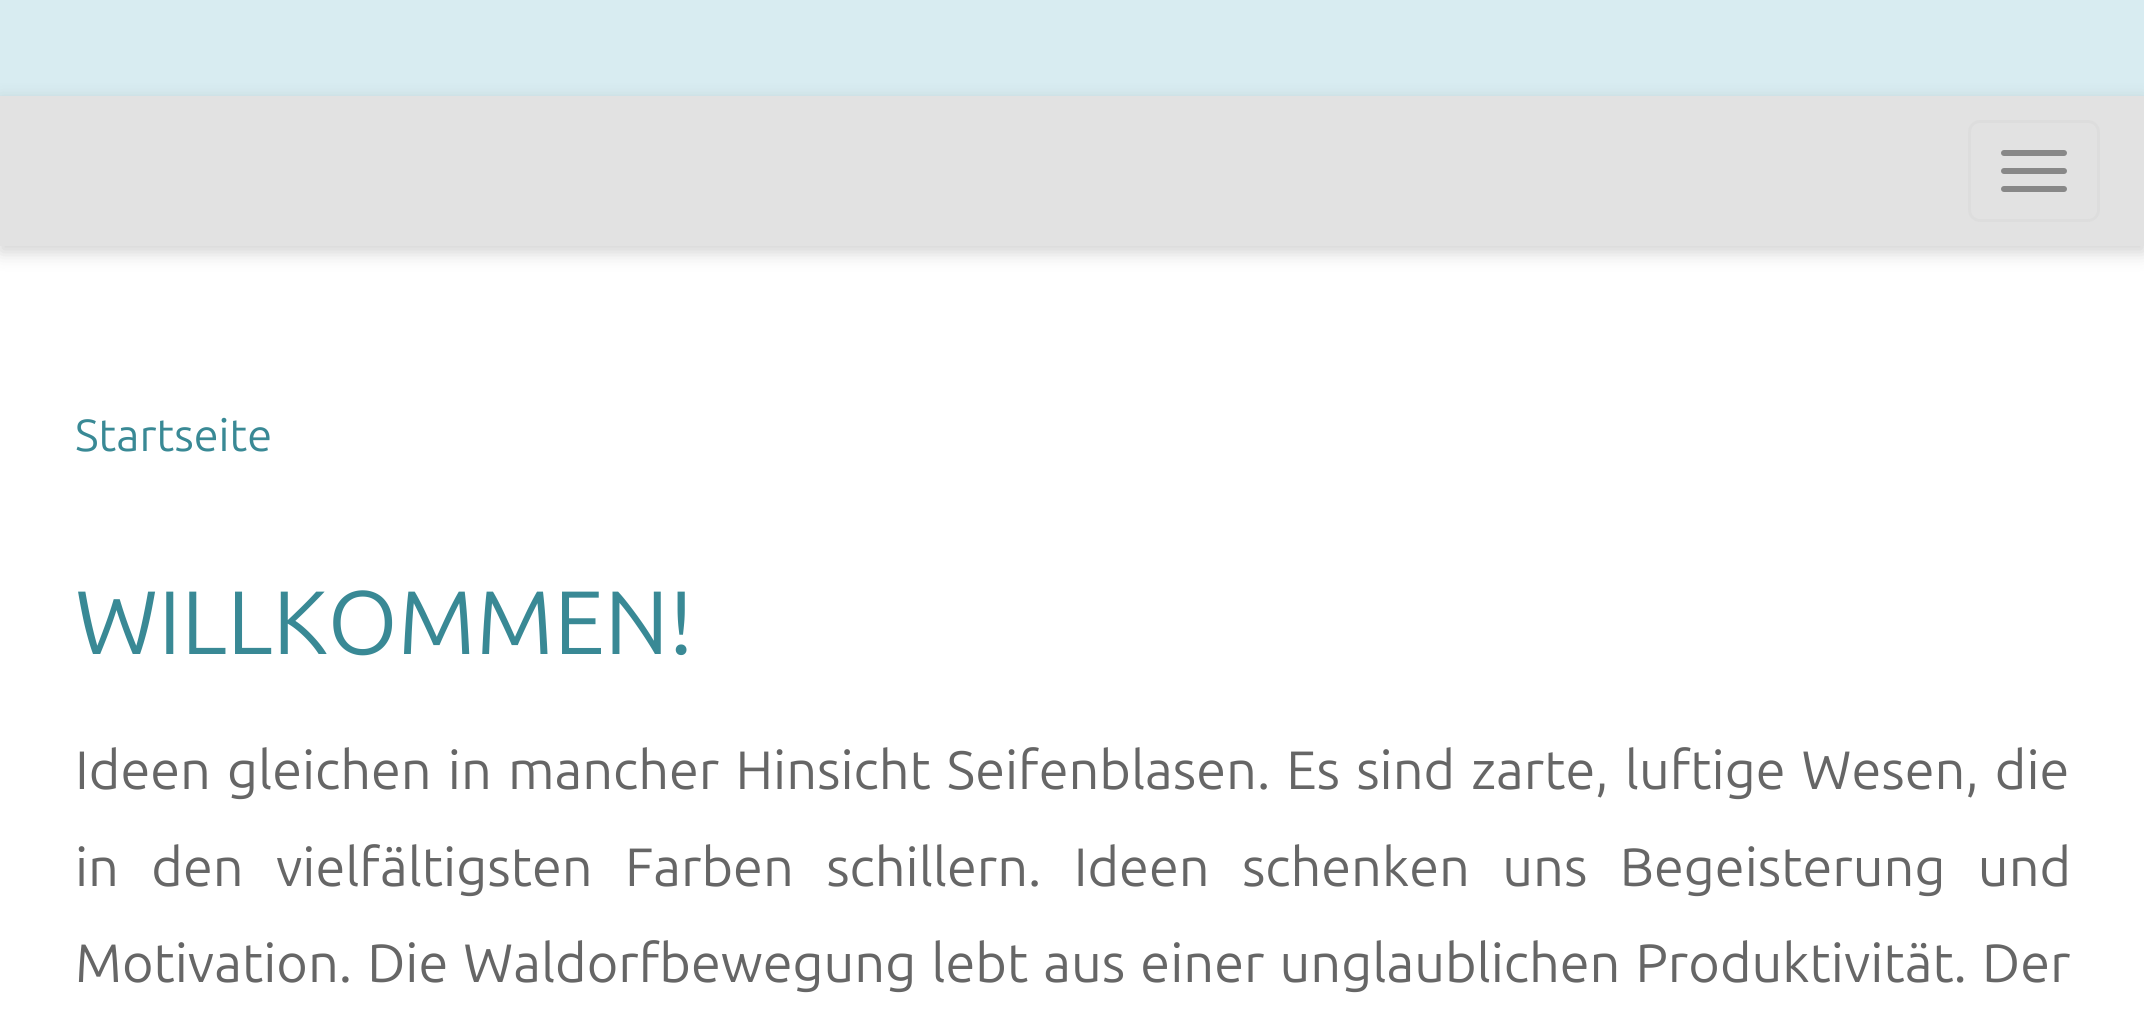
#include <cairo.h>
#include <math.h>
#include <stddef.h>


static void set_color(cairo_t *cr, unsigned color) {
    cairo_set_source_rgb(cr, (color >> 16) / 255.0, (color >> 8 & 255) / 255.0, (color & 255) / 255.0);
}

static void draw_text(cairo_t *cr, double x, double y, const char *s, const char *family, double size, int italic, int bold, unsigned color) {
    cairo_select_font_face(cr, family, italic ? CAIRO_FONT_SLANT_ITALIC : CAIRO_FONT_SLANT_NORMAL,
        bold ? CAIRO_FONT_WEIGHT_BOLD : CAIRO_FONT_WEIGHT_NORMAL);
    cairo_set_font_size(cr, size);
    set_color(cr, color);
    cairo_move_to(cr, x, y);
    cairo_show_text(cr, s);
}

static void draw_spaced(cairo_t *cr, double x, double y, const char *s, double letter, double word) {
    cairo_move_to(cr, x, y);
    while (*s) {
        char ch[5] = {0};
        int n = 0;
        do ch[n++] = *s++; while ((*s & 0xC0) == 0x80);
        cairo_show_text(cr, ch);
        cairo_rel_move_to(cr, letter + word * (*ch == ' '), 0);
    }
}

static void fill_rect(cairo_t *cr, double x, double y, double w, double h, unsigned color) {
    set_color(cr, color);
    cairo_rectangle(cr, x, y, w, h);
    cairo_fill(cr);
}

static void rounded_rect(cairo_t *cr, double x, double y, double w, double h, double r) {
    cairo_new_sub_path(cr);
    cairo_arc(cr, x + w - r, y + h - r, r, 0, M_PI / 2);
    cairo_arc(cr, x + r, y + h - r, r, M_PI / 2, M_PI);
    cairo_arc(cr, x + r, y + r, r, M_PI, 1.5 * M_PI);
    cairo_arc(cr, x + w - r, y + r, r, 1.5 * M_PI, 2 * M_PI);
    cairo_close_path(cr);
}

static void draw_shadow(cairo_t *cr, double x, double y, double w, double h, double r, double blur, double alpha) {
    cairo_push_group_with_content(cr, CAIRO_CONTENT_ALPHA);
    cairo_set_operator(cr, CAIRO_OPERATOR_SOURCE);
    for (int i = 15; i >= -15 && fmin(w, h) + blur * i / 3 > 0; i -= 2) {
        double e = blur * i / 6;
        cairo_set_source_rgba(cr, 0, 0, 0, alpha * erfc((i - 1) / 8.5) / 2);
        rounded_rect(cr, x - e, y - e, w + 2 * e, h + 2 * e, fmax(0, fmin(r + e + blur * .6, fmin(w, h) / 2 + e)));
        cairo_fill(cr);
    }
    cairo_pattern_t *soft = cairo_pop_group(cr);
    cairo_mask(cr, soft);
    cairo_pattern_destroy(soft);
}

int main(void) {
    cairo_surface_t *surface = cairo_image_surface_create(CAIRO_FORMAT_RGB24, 2144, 1014);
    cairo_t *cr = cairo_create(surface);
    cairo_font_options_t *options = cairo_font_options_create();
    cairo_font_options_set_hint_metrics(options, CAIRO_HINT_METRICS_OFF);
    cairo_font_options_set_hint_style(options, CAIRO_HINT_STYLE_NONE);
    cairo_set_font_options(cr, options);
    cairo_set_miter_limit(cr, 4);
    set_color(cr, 0xFFFFFF);
    cairo_paint(cr);
    fill_rect(cr, 0, 0, 2144, 96, 0xD8ECF1);
    set_color(cr, 0x000000);
    draw_shadow(cr, 0, 102, 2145, 150, 0, 9, 0.18);
    fill_rect(cr, 0, 96, 2144, 150, 0xE2E2E2);
    rounded_rect(cr, 1969.5, 121.5, 129, 99, 10.5);
    set_color(cr, 0xDDDDDD);
    cairo_set_line_width(cr, 3);
    cairo_stroke(cr);
    set_color(cr, 0x888888);
    rounded_rect(cr, 2001, 150, 66, 6, 3);
    cairo_fill(cr);
    rounded_rect(cr, 2001, 168, 66, 6, 3);
    cairo_fill(cr);
    rounded_rect(cr, 2001, 186, 66, 6, 3);
    cairo_fill(cr);
    draw_text(cr, 75, 451, "Startseite", "Ubuntu", 45, 0, 0, 0x398995);
    draw_text(cr, 75, 654, "WILLKOMMEN!", "Ubuntu", 90, 0, 0, 0x398995);
    cairo_set_font_size(cr, 54);
    set_color(cr, 0x666666);
    draw_spaced(cr, 75, 789, "Ideen gleichen in mancher Hinsicht Seifenblasen. Es sind zarte, luftige Wesen, die", 0, 3.75);
    draw_spaced(cr, 75, 886, "in den vielfältigsten Farben schillern. Ideen schenken uns Begeisterung und", 0, 20);
    draw_spaced(cr, 75, 982, "Motivation. Die Waldorfbewegung lebt aus einer unglaublichen Produktivität. Der", 0, 2.75);
    cairo_surface_write_to_png(surface, "output.png");
    cairo_font_options_destroy(options);
    cairo_destroy(cr);
    cairo_surface_destroy(surface);
    return 0;
}
